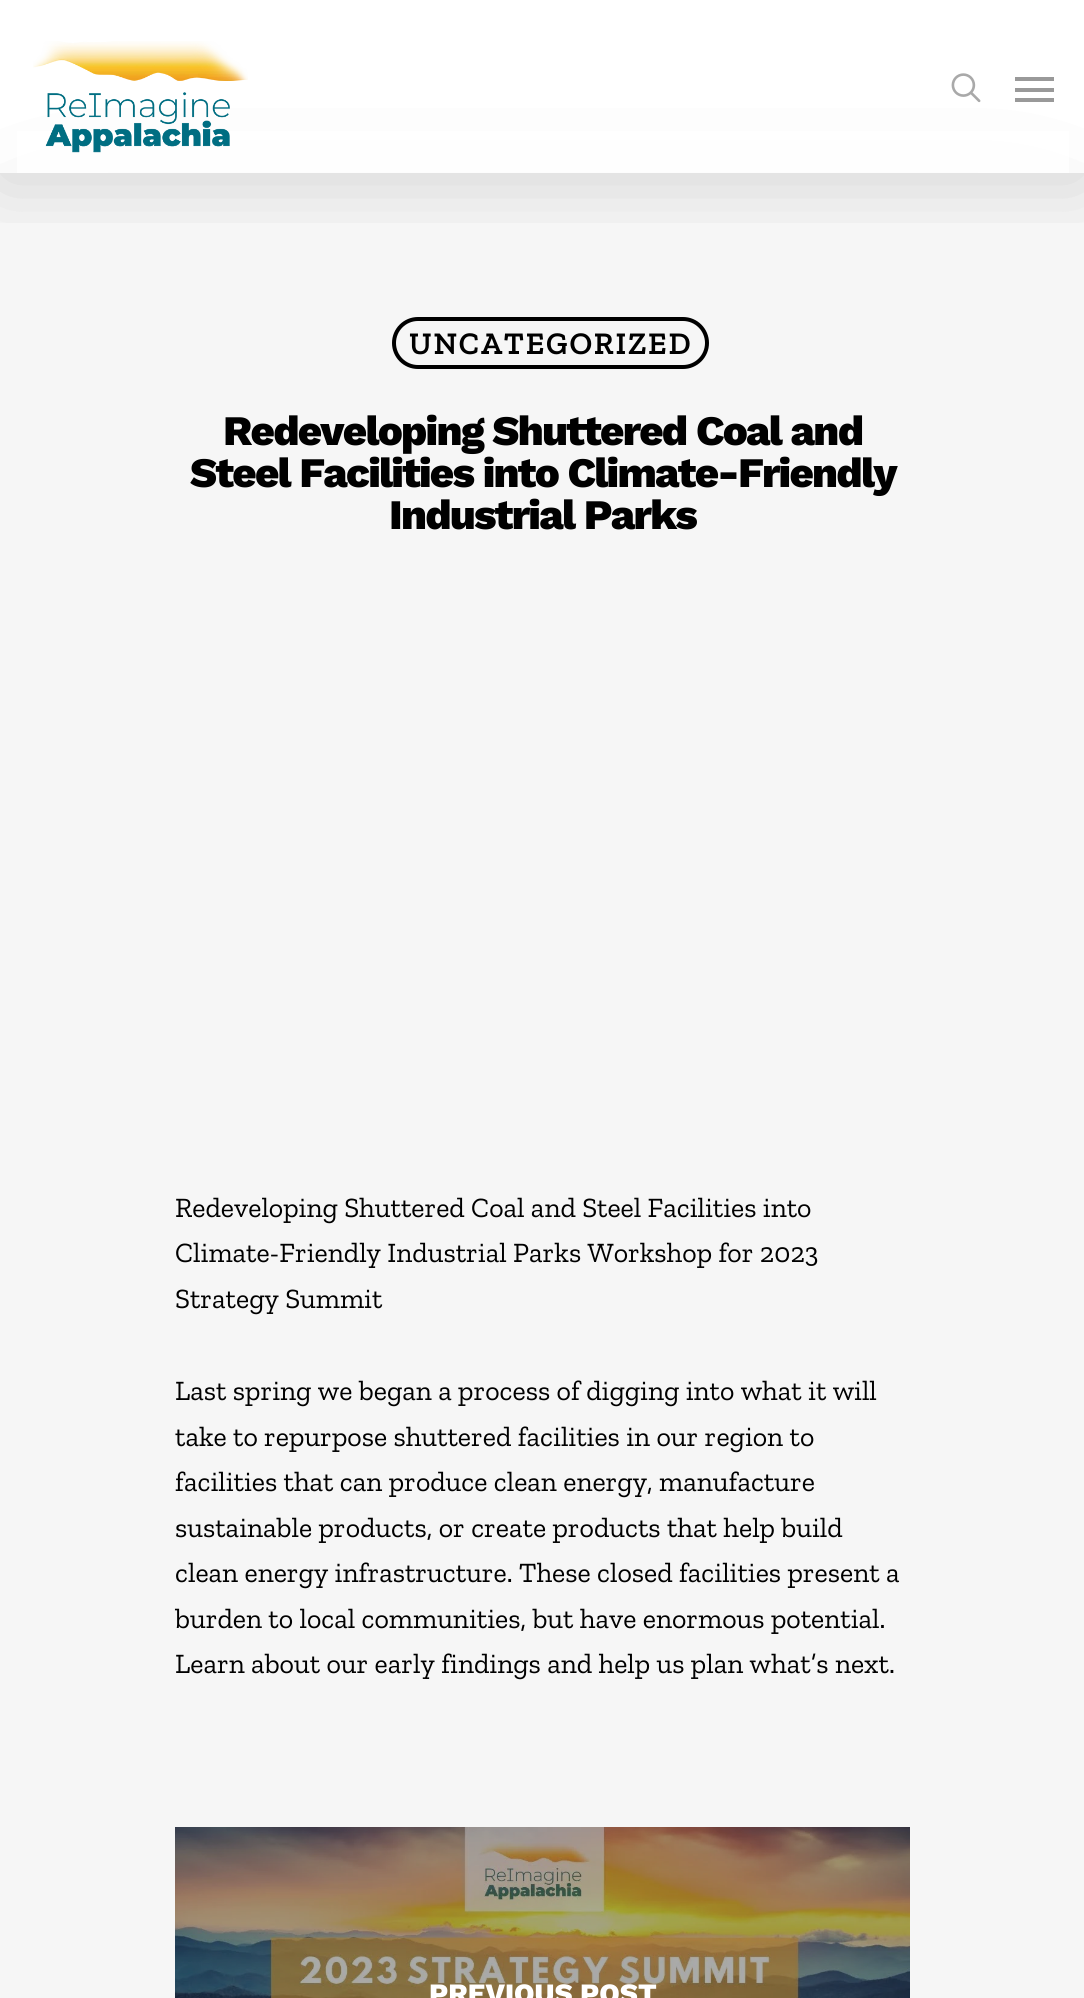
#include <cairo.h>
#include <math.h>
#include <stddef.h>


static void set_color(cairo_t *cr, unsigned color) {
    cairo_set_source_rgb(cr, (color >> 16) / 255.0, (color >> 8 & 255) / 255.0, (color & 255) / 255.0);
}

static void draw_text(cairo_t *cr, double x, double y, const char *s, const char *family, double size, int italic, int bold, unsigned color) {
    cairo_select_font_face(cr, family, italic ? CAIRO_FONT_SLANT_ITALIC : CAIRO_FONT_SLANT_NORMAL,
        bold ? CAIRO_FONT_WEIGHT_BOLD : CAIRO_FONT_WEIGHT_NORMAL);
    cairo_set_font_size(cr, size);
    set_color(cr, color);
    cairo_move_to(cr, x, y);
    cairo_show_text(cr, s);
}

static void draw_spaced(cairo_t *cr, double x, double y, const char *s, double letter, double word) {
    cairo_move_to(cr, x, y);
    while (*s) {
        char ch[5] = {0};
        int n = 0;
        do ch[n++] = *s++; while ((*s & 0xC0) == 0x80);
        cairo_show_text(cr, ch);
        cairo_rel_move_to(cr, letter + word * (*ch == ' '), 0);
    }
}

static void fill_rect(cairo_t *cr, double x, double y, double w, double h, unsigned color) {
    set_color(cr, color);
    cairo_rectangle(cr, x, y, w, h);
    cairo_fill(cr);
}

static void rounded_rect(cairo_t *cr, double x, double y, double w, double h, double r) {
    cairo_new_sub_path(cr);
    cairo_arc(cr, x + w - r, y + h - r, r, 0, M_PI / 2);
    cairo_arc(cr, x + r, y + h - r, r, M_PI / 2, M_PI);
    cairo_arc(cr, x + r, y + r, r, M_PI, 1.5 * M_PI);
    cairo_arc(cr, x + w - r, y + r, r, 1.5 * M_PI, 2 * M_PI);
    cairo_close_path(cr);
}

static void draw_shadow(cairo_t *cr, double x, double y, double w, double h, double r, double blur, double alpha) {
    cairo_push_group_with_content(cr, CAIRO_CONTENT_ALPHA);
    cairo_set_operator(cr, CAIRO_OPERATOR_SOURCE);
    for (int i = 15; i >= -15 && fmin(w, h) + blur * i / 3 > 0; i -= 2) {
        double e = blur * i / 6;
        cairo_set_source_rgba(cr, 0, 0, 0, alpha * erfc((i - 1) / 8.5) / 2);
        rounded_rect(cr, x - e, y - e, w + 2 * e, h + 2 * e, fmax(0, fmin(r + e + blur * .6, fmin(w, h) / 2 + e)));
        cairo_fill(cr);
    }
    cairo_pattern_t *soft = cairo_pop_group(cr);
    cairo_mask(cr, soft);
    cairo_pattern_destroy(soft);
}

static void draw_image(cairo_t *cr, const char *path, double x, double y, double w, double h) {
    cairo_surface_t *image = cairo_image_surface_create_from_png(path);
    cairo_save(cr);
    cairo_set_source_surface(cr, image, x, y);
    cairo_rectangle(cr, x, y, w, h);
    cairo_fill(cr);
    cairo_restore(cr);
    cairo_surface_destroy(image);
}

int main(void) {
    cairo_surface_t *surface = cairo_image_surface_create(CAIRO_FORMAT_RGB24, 1084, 1998);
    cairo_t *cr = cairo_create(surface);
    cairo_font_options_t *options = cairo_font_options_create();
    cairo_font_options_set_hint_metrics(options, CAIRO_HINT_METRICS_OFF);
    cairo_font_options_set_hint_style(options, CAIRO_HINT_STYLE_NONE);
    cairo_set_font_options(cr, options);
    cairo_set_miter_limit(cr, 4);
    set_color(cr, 0xFFFFFF);
    cairo_paint(cr);
    set_color(cr, 0x000000);
    draw_shadow(cr, 53, 348, 980, 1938, 0, 96, 1);
    fill_rect(cr, 0, 173, 1084, 1825, 0xF6F6F6);
    cairo_save(cr);
    cairo_rectangle(cr, 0, 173, 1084, 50);
    cairo_clip(cr);
    set_color(cr, 0x000000);
    draw_shadow(cr, 0, 5, 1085, 174, 0, 39.5, 0.15);
    cairo_restore(cr);
    cairo_set_source_rgba(cr, 1, 1, 1, 0.87);
    cairo_rectangle(cr, 17, 131, 1052, 42);
    cairo_fill(cr);
    draw_image(cr, "assets/img1.png", 33, 41, 215, 112);
    draw_image(cr, "assets/img2.png", 951, 73, 30, 30);
    fill_rect(cr, 1015, 77, 39, 4, 0x999999);
    fill_rect(cr, 1015, 98, 39, 4, 0x999999);
    fill_rect(cr, 1015, 88, 39, 4, 0x999999);
    rounded_rect(cr, 394, 319, 313, 48, 24);
    set_color(cr, 0x000000);
    cairo_set_line_width(cr, 4);
    cairo_stroke(cr);
    cairo_select_font_face(cr, "Zilla Slab SemiBold", CAIRO_FONT_SLANT_NORMAL, CAIRO_FONT_WEIGHT_NORMAL);
    cairo_set_font_size(cr, 31.5);
    draw_spaced(cr, 409, 354, "UNCATEGORIZED", 1.75, 0);
    cairo_select_font_face(cr, "Work Sans ExtraBold", CAIRO_FONT_SLANT_NORMAL, CAIRO_FONT_WEIGHT_NORMAL);
    cairo_set_font_size(cr, 42);
    draw_spaced(cr, 223, 445, "Redeveloping Shuttered Coal and", -1.75, 0);
    draw_spaced(cr, 190, 487, "Steel Facilities into Climate-Friendly", -1.75, 0);
    draw_spaced(cr, 389, 529, "Industrial Parks", -1.75, 0);
    draw_text(cr, 175, 1217, "Redeveloping Shuttered Coal and Steel Facilities into", "Zilla Slab", 28, 0, 0, 0x000000);
    draw_text(cr, 175, 1262, "Climate-Friendly Industrial Parks Workshop for 2023", "Zilla Slab", 28, 0, 0, 0x000000);
    draw_text(cr, 175, 1308, "Strategy Summit", "Zilla Slab", 28, 0, 0, 0x000000);
    draw_text(cr, 175, 1400, "Last spring we began a process of digging into what it will", "Zilla Slab", 28, 0, 0, 0x000000);
    draw_text(cr, 175, 1446, "take to repurpose shuttered facilities in our region to", "Zilla Slab", 28, 0, 0, 0x000000);
    draw_text(cr, 175, 1491, "facilities that can produce clean energy, manufacture", "Zilla Slab", 28, 0, 0, 0x000000);
    draw_text(cr, 175, 1537, "sustainable products, or create products that help build", "Zilla Slab", 28, 0, 0, 0x000000);
    draw_text(cr, 175, 1582, "clean energy infrastructure. These closed facilities present a", "Zilla Slab", 28, 0, 0, 0x000000);
    draw_text(cr, 175, 1628, "burden to local communities, but have enormous potential.", "Zilla Slab", 28, 0, 0, 0x000000);
    draw_text(cr, 175, 1673, "Learn about our early findings and help us plan what’s next.", "Zilla Slab", 28, 0, 0, 0x000000);
    draw_image(cr, "assets/img3.png", 175, 1827, 735, 171);
    draw_text(cr, 429, 2003, "PREVIOUS POST", "Work Sans ExtraBold", 28, 0, 0, 0xFFFFFF);
    cairo_surface_write_to_png(surface, "output.png");
    cairo_font_options_destroy(options);
    cairo_destroy(cr);
    cairo_surface_destroy(surface);
    return 0;
}
